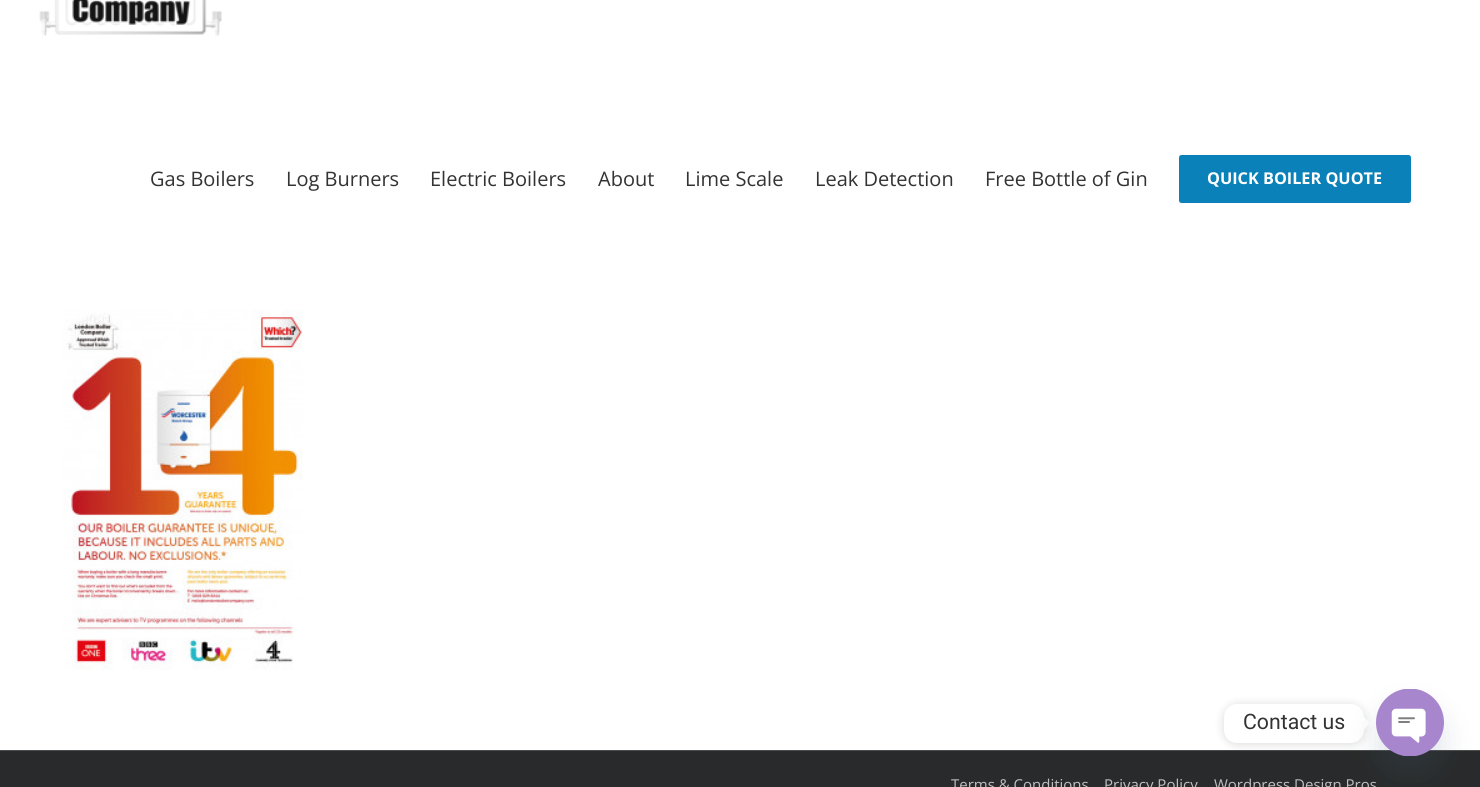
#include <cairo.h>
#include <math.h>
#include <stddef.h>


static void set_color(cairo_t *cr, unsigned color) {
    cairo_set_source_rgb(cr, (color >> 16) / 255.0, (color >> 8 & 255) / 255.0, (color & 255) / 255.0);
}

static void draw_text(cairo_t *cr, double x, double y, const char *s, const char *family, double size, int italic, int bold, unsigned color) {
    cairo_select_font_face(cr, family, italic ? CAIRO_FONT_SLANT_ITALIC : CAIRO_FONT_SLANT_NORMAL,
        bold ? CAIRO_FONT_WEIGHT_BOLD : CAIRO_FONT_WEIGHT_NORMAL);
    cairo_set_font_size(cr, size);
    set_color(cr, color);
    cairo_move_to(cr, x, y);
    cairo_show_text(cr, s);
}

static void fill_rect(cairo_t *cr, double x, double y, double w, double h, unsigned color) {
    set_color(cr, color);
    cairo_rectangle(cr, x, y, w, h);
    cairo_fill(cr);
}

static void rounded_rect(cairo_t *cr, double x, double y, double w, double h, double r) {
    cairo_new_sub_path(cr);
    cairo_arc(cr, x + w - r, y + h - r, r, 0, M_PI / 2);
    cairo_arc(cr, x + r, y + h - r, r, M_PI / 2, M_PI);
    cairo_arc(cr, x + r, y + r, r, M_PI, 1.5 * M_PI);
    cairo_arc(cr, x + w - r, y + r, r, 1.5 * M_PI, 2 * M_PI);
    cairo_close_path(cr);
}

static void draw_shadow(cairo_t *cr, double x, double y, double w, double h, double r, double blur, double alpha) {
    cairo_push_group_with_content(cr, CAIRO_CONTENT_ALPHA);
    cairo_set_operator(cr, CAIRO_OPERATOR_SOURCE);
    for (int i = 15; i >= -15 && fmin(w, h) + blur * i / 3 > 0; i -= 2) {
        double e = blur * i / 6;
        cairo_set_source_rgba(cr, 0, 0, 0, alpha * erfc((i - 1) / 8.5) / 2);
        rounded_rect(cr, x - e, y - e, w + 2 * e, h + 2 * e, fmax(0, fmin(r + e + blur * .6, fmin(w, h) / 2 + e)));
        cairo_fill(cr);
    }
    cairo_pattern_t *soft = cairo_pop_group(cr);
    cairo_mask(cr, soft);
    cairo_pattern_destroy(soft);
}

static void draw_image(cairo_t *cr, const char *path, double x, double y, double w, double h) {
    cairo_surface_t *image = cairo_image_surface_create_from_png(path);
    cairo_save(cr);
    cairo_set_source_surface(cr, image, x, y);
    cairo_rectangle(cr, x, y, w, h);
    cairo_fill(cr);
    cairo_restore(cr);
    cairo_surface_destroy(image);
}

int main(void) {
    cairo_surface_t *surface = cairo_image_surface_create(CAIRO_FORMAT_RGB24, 1480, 787);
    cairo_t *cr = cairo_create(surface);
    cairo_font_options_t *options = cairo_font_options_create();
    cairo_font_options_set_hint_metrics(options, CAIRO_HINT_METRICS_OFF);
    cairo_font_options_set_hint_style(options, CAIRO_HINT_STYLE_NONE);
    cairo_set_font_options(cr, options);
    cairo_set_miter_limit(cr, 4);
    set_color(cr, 0xFFFFFF);
    cairo_paint(cr);
    draw_image(cr, "assets/img1.png", 39, 0, 183, 36);
    draw_text(cr, 150, 186, "Gas Boilers", "Open Sans", 20, 0, 0, 0x333333);
    draw_text(cr, 286, 186, "Log Burners", "Open Sans", 20, 0, 0, 0x333333);
    draw_text(cr, 430, 186, "Electric Boilers", "Open Sans", 20, 0, 0, 0x333333);
    draw_text(cr, 598, 186, "About", "Open Sans", 20, 0, 0, 0x333333);
    draw_text(cr, 685, 186, "Lime Scale", "Open Sans", 20, 0, 0, 0x333333);
    draw_text(cr, 815, 186, "Leak Detection", "Open Sans", 20, 0, 0, 0x333333);
    draw_text(cr, 985, 186, "Free Bottle of Gin", "Open Sans", 20, 0, 0, 0x333333);
    set_color(cr, 0x0A81B9);
    rounded_rect(cr, 1179, 155, 232, 48, 2.5);
    cairo_fill(cr);
    draw_text(cr, 1207, 184, "QUICK BOILER QUOTE", "Open Sans", 16.25, 0, 1, 0xFFFFFF);
    draw_image(cr, "assets/img2.png", 63, 310, 240, 360);
    fill_rect(cr, 0, 751, 1480, 36, 0x282A2B);
    fill_rect(cr, 0, 750, 1480, 1, 0x4B4C4D);
    draw_text(cr, 951, 790, "Terms & Conditions", "Open Sans", 15, 0, 0, 0xBFBFBF);
    draw_text(cr, 1104, 790, "Privacy Policy", "Open Sans", 15, 0, 0, 0xBFBFBF);
    draw_text(cr, 1214, 790, "Wordpress Design Pros", "Open Sans", 15, 0, 0, 0xBFBFBF);
    set_color(cr, 0x000000);
    draw_shadow(cr, 1224, 705, 140, 39, 13, 5, 0.15);
    set_color(cr, 0xFFFFFF);
    rounded_rect(cr, 1224, 704, 140, 39, 13);
    cairo_fill(cr);
    draw_text(cr, 1243, 729, "Contact us", "Roboto", 21.25, 0, 0, 0x333333);
    set_color(cr, 0xFFFFFF);
    cairo_new_path(cr);
    cairo_move_to(cr, 1364, 729.5);
    cairo_line_to(cr, 1364, 717);
    cairo_line_to(cr, 1370, 723);
    cairo_close_path(cr);
    cairo_fill(cr);
    set_color(cr, 0x49687E);
    draw_shadow(cr, 1376, 709, 68, 67, 33.5, 15, 0.16);
    draw_image(cr, "assets/img3.png", 1376, 689, 68, 67);
    cairo_surface_write_to_png(surface, "output.png");
    cairo_font_options_destroy(options);
    cairo_destroy(cr);
    cairo_surface_destroy(surface);
    return 0;
}
